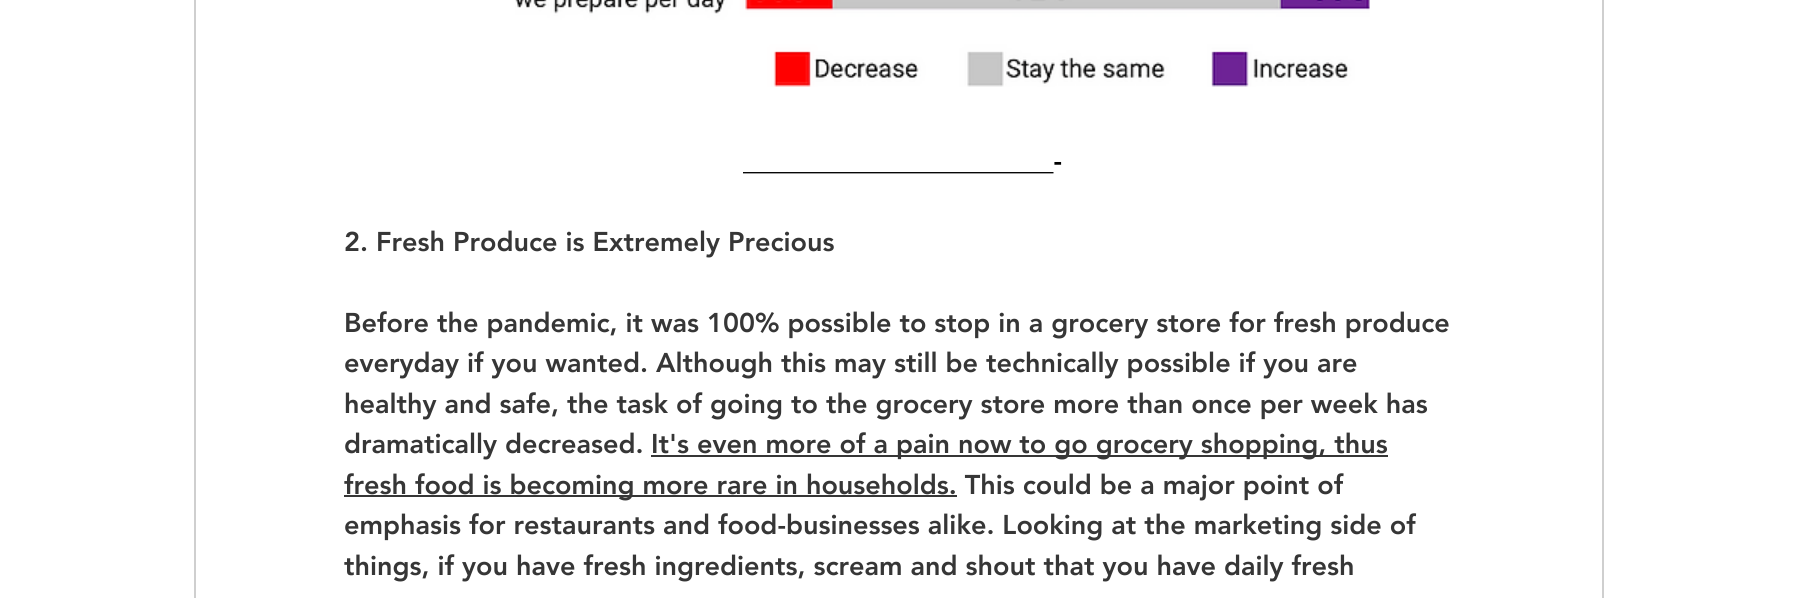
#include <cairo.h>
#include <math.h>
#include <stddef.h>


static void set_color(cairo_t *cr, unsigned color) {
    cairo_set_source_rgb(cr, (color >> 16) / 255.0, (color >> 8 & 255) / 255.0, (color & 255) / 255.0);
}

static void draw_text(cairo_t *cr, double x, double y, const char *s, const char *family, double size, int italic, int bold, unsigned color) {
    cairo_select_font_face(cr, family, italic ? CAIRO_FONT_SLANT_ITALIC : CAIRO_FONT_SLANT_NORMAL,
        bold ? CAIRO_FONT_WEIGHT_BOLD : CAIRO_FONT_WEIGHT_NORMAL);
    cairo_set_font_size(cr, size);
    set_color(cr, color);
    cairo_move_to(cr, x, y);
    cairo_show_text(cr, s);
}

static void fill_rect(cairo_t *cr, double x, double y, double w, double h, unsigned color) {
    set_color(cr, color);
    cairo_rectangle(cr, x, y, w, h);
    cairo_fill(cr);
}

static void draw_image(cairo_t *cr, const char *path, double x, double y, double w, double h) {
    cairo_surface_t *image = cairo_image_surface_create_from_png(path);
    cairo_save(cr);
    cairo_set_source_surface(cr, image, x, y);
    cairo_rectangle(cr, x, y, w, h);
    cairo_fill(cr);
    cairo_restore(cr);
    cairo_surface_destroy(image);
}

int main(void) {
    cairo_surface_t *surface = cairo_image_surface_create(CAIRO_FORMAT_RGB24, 1797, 598);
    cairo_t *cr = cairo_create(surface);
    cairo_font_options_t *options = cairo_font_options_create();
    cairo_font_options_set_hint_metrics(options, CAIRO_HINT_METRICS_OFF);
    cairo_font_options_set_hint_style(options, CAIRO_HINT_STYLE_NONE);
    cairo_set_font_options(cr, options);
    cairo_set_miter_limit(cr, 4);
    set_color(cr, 0xFFFFFF);
    cairo_paint(cr);
    cairo_rectangle(cr, 195, -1, 1408, 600);
    set_color(cr, 0xCFCFCF);
    cairo_stroke(cr);
    draw_image(cr, "assets/img1.png", 515, 0, 855, 87);
    draw_text(cr, 743, 170, "_______________________-", "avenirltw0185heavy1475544 Black", 27, 0, 0, 0x000000);
    draw_text(cr, 344, 251, "2. Fresh Produce is Extremely Precious", "avenirltw0185heavy1475544 Black", 27, 0, 0, 0x363636);
    draw_text(cr, 344, 332, "Before the pandemic, it was 100% possible to stop in a grocery store for fresh produce", "avenirltw0185heavy1475544 Black", 27, 0, 0, 0x363636);
    draw_text(cr, 344, 372, "everyday if you wanted. Although this may still be technically possible if you are", "avenirltw0185heavy1475544 Black", 27, 0, 0, 0x363636);
    draw_text(cr, 344, 413, "healthy and safe, the task of going to the grocery store more than once per week has", "avenirltw0185heavy1475544 Black", 27, 0, 0, 0x363636);
    draw_text(cr, 344, 453, "dramatically decreased.", "avenirltw0185heavy1475544 Black", 27, 0, 0, 0x363636);
    fill_rect(cr, 651, 455, 737, 2, 0x363636);
    draw_text(cr, 651, 453, "It's even more of a pain now to go grocery shopping, thus", "avenirltw0185heavy1475544 Black", 27, 0, 0, 0x363636);
    fill_rect(cr, 344, 495, 613, 2, 0x363636);
    draw_text(cr, 344, 494, "fresh food is becoming more rare in households. This could be a major point of", "avenirltw0185heavy1475544 Black", 27, 0, 0, 0x363636);
    draw_text(cr, 344, 534, "emphasis for restaurants and food-businesses alike. Looking at the marketing side of", "avenirltw0185heavy1475544 Black", 27, 0, 0, 0x363636);
    draw_text(cr, 344, 575, "things, if you have fresh ingredients, scream and shout that you have daily fresh", "avenirltw0185heavy1475544 Black", 27, 0, 0, 0x363636);
    cairo_surface_write_to_png(surface, "output.png");
    cairo_font_options_destroy(options);
    cairo_destroy(cr);
    cairo_surface_destroy(surface);
    return 0;
}
